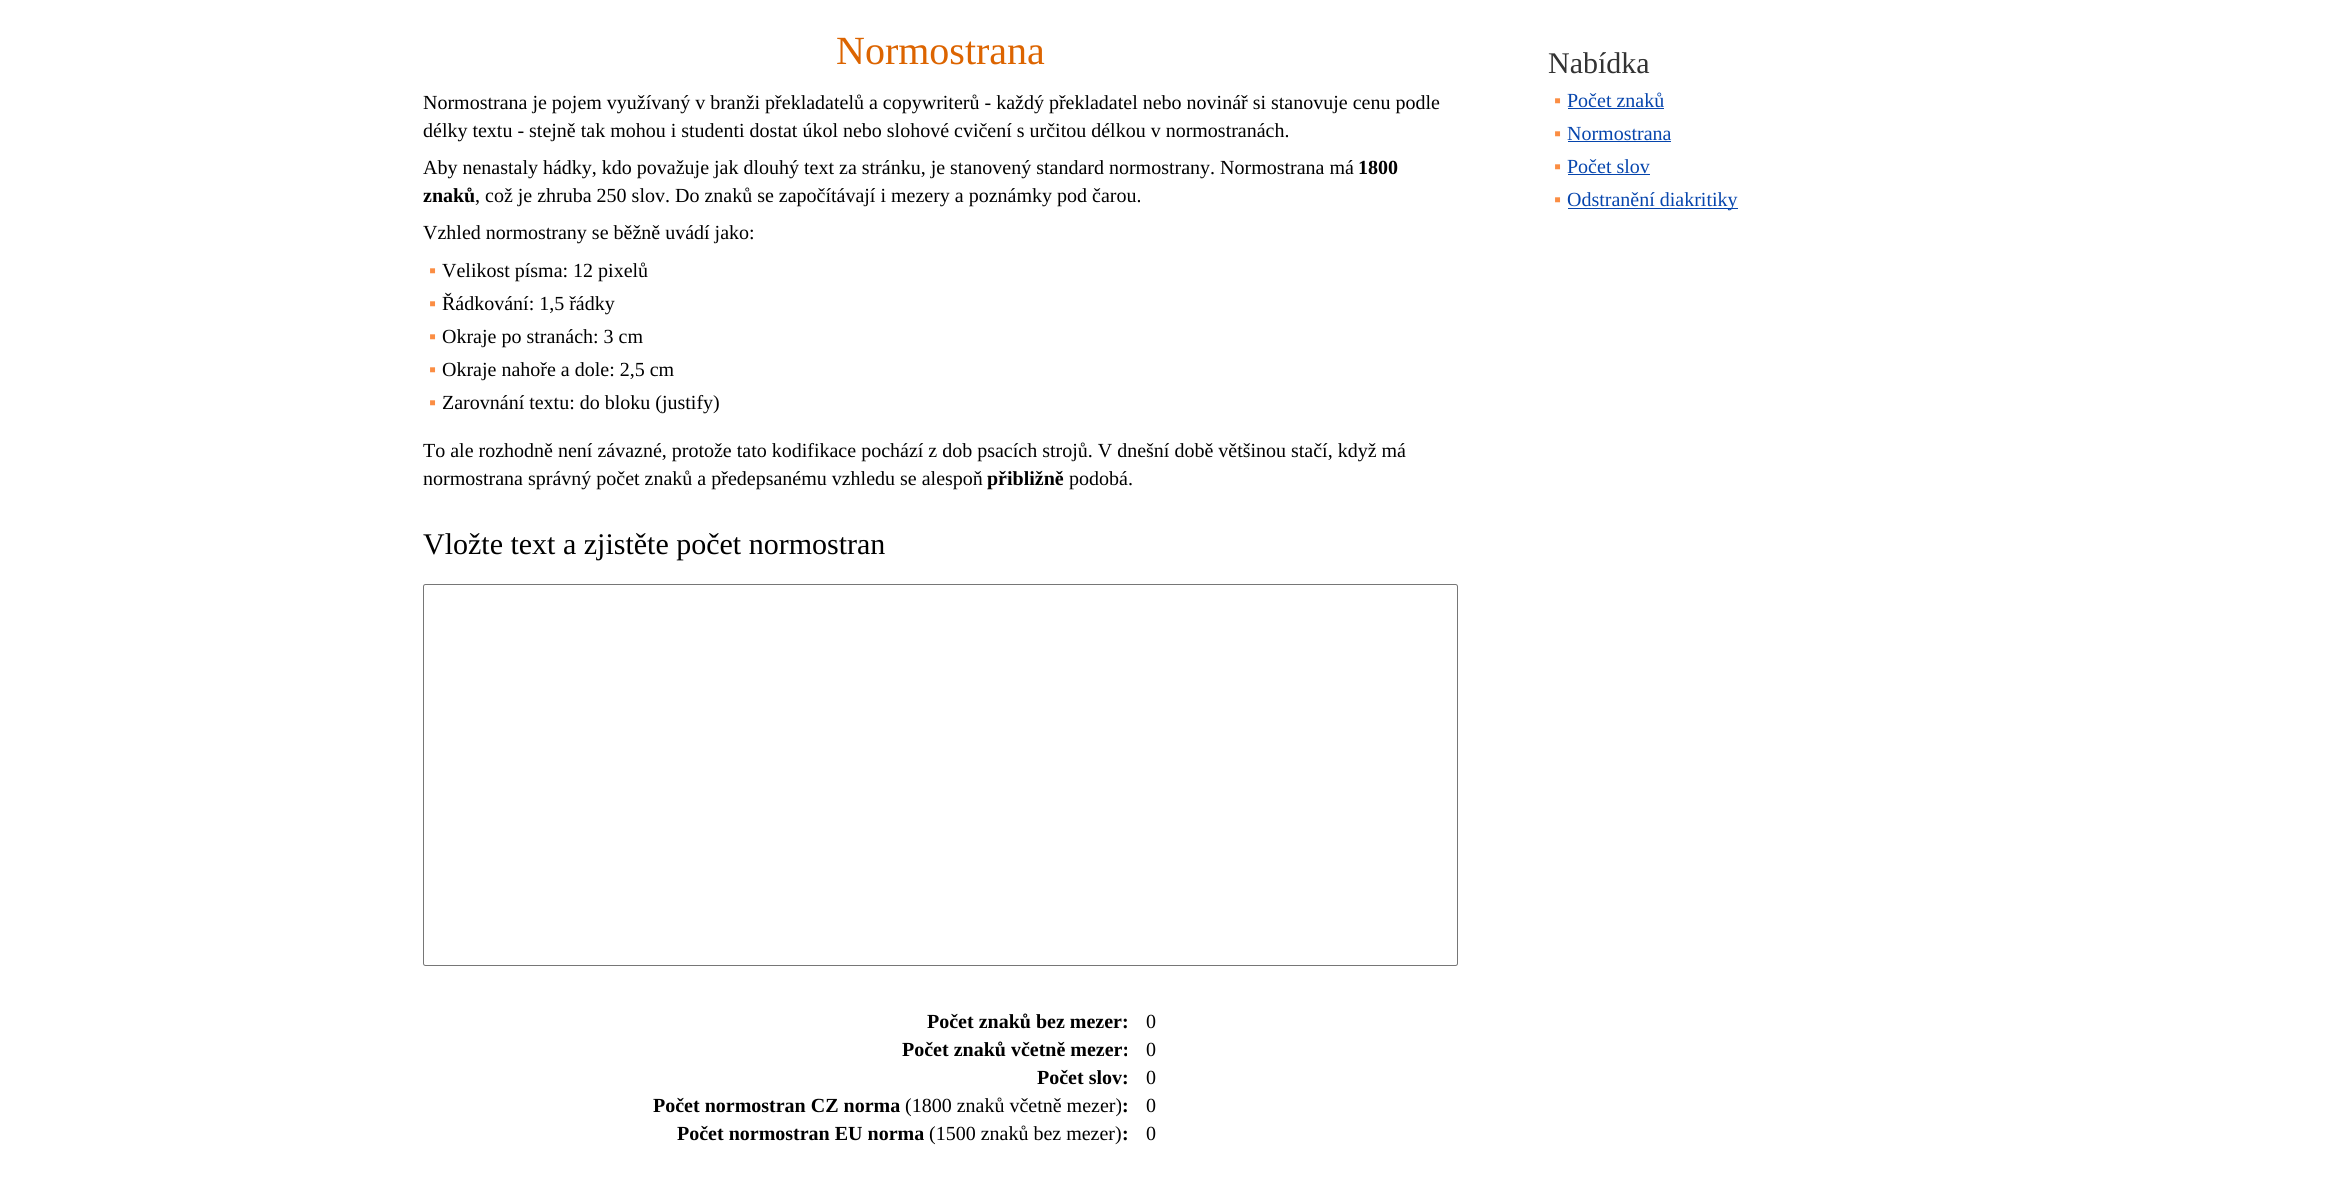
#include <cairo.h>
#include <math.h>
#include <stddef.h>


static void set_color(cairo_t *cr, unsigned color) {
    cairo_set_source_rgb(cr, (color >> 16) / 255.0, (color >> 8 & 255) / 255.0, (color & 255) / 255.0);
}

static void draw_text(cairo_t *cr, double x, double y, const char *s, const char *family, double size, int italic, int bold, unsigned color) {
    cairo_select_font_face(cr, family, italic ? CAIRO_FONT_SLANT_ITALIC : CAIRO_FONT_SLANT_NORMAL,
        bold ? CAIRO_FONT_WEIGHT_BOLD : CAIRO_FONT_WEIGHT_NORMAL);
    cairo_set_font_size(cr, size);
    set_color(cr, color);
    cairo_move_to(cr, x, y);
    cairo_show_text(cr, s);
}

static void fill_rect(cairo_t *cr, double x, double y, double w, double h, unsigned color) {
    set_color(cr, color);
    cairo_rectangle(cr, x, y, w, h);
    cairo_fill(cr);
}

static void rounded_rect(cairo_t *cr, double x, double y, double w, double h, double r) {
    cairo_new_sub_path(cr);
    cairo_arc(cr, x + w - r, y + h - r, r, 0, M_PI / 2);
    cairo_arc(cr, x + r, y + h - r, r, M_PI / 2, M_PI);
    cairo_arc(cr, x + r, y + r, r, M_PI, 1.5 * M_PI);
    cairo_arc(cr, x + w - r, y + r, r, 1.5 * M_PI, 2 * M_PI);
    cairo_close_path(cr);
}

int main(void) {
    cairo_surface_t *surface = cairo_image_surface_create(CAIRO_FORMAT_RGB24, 2345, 1198);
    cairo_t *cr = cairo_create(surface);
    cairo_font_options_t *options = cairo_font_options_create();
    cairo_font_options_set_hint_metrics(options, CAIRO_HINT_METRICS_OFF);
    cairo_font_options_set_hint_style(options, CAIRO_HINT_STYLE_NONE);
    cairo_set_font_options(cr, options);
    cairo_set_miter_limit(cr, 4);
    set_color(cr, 0xFFFFFF);
    cairo_paint(cr);
    draw_text(cr, 836, 64, "Normostrana", "Liberation Serif", 40, 0, 0, 0xDC6400);
    draw_text(cr, 423, 109, "Normostrana je pojem využívaný v branži překladatelů a copywriterů - každý překladatel nebo novinář si stanovuje cenu podle", "Liberation Serif", 20, 0, 0, 0x000000);
    draw_text(cr, 423, 137, "délky textu - stejně tak mohou i studenti dostat úkol nebo slohové cvičení s určitou délkou v normostranách.", "Liberation Serif", 20, 0, 0, 0x000000);
    draw_text(cr, 423, 174, "Aby nenastaly hádky, kdo považuje jak dlouhý text za stránku, je stanovený standard normostrany. Normostrana má", "Liberation Serif", 20, 0, 0, 0x000000);
    draw_text(cr, 1358, 174, "1800", "Liberation Serif", 20, 0, 1, 0x000000);
    draw_text(cr, 423, 202, "znaků", "Liberation Serif", 20, 0, 1, 0x000000);
    draw_text(cr, 475, 202, ", což je zhruba 250 slov. Do znaků se započítávají i mezery a poznámky pod čarou.", "Liberation Serif", 20, 0, 0, 0x000000);
    draw_text(cr, 423, 239, "Vzhled normostrany se běžně uvádí jako:", "Liberation Serif", 20, 0, 0, 0x000000);
    draw_text(cr, 429, 277, "▪", "Liberation Serif", 20, 0, 0, 0xFB8D43);
    draw_text(cr, 442, 277, "Velikost písma: 12 pixelů", "Liberation Serif", 20, 0, 0, 0x000000);
    draw_text(cr, 429, 310, "▪", "Liberation Serif", 20, 0, 0, 0xFB8D43);
    draw_text(cr, 442, 310, "Řádkování: 1,5 řádky", "Liberation Serif", 20, 0, 0, 0x000000);
    draw_text(cr, 429, 343, "▪", "Liberation Serif", 20, 0, 0, 0xFB8D43);
    draw_text(cr, 442, 343, "Okraje po stranách: 3 cm", "Liberation Serif", 20, 0, 0, 0x000000);
    draw_text(cr, 429, 376, "▪", "Liberation Serif", 20, 0, 0, 0xFB8D43);
    draw_text(cr, 442, 376, "Okraje nahoře a dole: 2,5 cm", "Liberation Serif", 20, 0, 0, 0x000000);
    draw_text(cr, 429, 409, "▪", "Liberation Serif", 20, 0, 0, 0xFB8D43);
    draw_text(cr, 442, 409, "Zarovnání textu: do bloku (justify)", "Liberation Serif", 20, 0, 0, 0x000000);
    draw_text(cr, 423, 457, "To ale rozhodně není závazné, protože tato kodifikace pochází z dob psacích strojů. V dnešní době většinou stačí, když má", "Liberation Serif", 20, 0, 0, 0x000000);
    draw_text(cr, 423, 485, "normostrana správný počet znaků a předepsanému vzhledu se alespoň", "Liberation Serif", 20, 0, 0, 0x000000);
    draw_text(cr, 987, 485, "přibližně", "Liberation Serif", 20, 0, 1, 0x000000);
    draw_text(cr, 1069, 485, "podobá.", "Liberation Serif", 20, 0, 0, 0x000000);
    draw_text(cr, 423, 554, "Vložte text a zjistěte počet normostran", "Liberation Serif", 30, 0, 0, 0x000000);
    rounded_rect(cr, 423.5, 584.5, 1034, 381, 2);
    set_color(cr, 0x767676);
    cairo_set_line_width(cr, 1);
    cairo_stroke(cr);
    draw_text(cr, 927, 1028, "Počet znaků bez mezer:", "Liberation Serif", 20, 0, 1, 0x000000);
    draw_text(cr, 1146, 1028, "0", "Liberation Serif", 20, 0, 0, 0x000000);
    draw_text(cr, 902, 1056, "Počet znaků včetně mezer:", "Liberation Serif", 20, 0, 1, 0x000000);
    draw_text(cr, 1146, 1056, "0", "Liberation Serif", 20, 0, 0, 0x000000);
    draw_text(cr, 1037, 1084, "Počet slov:", "Liberation Serif", 20, 0, 1, 0x000000);
    draw_text(cr, 1146, 1084, "0", "Liberation Serif", 20, 0, 0, 0x000000);
    draw_text(cr, 653, 1112, "Počet normostran CZ norma", "Liberation Serif", 20, 0, 1, 0x000000);
    draw_text(cr, 905, 1112, "(1800 znaků včetně mezer)", "Liberation Serif", 20, 0, 0, 0x000000);
    draw_text(cr, 1122, 1112, ":", "Liberation Serif", 20, 0, 1, 0x000000);
    draw_text(cr, 1146, 1112, "0", "Liberation Serif", 20, 0, 0, 0x000000);
    draw_text(cr, 677, 1140, "Počet normostran EU norma", "Liberation Serif", 20, 0, 1, 0x000000);
    draw_text(cr, 929, 1140, "(1500 znaků bez mezer)", "Liberation Serif", 20, 0, 0, 0x000000);
    draw_text(cr, 1122, 1140, ":", "Liberation Serif", 20, 0, 1, 0x000000);
    draw_text(cr, 1146, 1140, "0", "Liberation Serif", 20, 0, 0, 0x000000);
    draw_text(cr, 1548, 73, "Nabídka", "Liberation Serif", 30, 0, 0, 0x333333);
    draw_text(cr, 1554, 107, "▪", "Liberation Serif", 20, 0, 0, 0xFB8D43);
    draw_text(cr, 1567, 107, "Počet znaků", "Liberation Serif", 20, 0, 0, 0x0645AD);
    fill_rect(cr, 1568, 108, 96, 1, 0x0645AD);
    draw_text(cr, 1554, 140, "▪", "Liberation Serif", 20, 0, 0, 0xFB8D43);
    draw_text(cr, 1567, 140, "Normostrana", "Liberation Serif", 20, 0, 0, 0x0645AD);
    fill_rect(cr, 1568, 141, 103, 1, 0x0645AD);
    draw_text(cr, 1554, 173, "▪", "Liberation Serif", 20, 0, 0, 0xFB8D43);
    draw_text(cr, 1567, 173, "Počet slov", "Liberation Serif", 20, 0, 0, 0x0645AD);
    fill_rect(cr, 1568, 174, 82, 1, 0x0645AD);
    draw_text(cr, 1554, 206, "▪", "Liberation Serif", 20, 0, 0, 0xFB8D43);
    fill_rect(cr, 1568, 208, 170, 1, 0x0645AD);
    draw_text(cr, 1567, 206, "Odstranění diakritiky", "Liberation Serif", 20, 0, 0, 0x0645AD);
    cairo_surface_write_to_png(surface, "output.png");
    cairo_font_options_destroy(options);
    cairo_destroy(cr);
    cairo_surface_destroy(surface);
    return 0;
}
